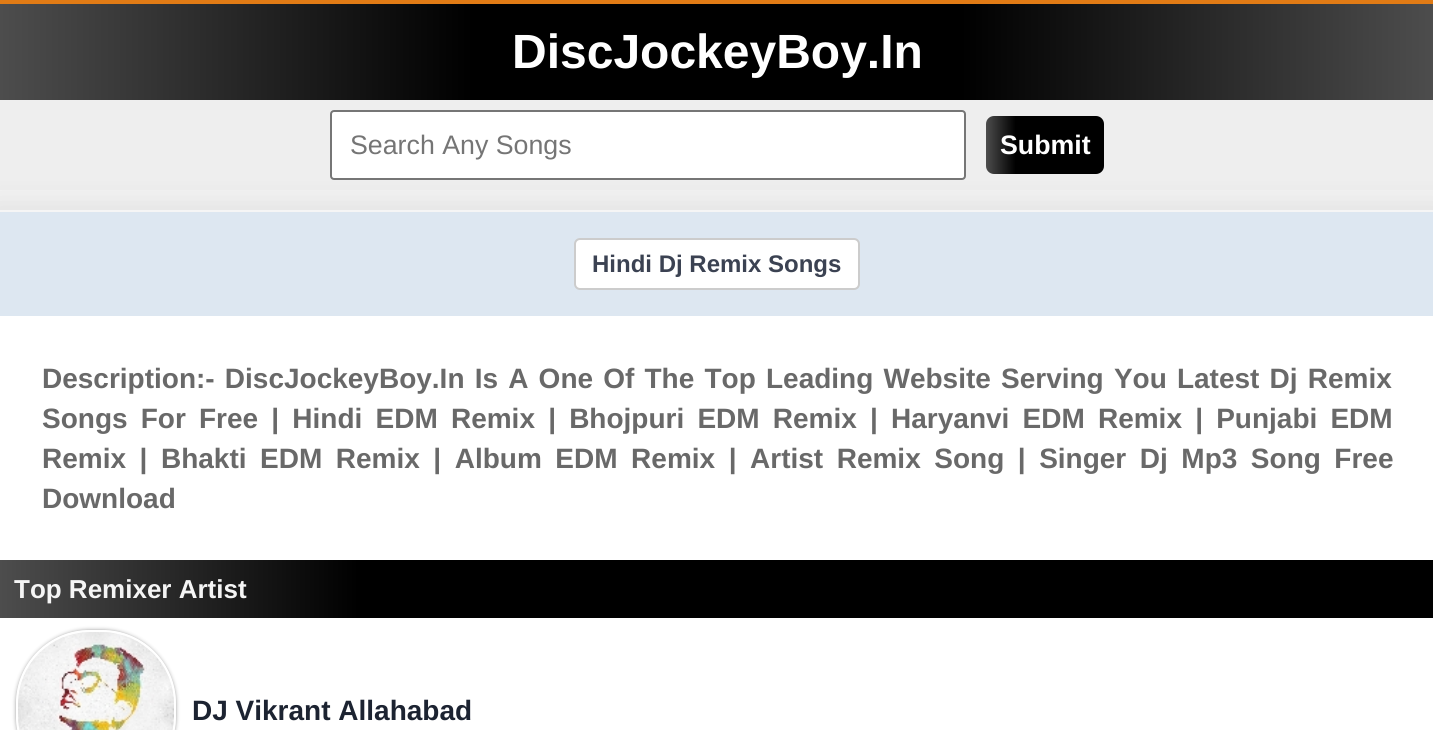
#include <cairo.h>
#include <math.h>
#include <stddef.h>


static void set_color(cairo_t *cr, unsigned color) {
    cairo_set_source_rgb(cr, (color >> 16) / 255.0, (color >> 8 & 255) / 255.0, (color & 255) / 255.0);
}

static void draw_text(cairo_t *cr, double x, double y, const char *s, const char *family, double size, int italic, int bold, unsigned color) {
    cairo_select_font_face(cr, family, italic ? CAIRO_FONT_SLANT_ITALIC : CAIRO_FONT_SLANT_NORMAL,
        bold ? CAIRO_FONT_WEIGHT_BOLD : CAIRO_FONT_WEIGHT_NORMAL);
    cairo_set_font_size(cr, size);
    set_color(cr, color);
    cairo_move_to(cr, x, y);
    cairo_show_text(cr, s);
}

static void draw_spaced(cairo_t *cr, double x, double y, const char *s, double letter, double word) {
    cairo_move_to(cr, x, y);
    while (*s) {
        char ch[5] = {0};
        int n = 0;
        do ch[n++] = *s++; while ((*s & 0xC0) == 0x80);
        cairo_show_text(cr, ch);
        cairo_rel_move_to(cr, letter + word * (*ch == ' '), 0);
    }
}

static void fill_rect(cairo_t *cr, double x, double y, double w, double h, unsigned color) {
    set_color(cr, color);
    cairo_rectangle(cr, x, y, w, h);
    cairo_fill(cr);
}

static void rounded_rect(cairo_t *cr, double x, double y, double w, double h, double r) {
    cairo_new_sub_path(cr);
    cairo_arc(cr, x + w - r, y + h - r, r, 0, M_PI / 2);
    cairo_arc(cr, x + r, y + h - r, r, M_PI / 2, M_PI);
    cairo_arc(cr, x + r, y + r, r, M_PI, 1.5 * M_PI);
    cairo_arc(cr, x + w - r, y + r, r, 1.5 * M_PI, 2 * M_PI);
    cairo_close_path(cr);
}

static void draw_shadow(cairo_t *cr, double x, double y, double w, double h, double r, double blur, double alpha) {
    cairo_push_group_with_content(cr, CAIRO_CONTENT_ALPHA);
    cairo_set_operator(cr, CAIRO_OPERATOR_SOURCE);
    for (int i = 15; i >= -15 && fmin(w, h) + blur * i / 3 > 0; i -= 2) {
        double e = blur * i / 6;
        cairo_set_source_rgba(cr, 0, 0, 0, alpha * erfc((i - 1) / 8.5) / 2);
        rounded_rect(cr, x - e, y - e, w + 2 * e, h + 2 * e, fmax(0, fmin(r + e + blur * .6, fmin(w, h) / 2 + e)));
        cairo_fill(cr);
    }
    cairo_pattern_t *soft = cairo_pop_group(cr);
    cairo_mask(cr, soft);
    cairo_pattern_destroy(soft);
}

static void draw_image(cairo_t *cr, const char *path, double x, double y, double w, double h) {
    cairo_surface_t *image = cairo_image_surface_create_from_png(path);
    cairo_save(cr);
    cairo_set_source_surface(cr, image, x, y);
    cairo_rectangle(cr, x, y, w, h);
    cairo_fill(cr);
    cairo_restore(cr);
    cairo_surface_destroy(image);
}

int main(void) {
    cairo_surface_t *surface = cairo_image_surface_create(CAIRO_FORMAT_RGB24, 1433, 730);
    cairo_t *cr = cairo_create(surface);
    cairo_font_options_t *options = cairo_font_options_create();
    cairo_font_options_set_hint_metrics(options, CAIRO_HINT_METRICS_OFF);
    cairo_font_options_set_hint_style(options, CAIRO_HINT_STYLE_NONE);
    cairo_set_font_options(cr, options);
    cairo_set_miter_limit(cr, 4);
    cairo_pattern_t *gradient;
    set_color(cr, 0xF3F3F3);
    cairo_paint(cr);
    gradient = cairo_pattern_create_linear(0, 52, 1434, 52);
    cairo_pattern_add_color_stop_rgba(gradient, 0, 0.302, 0.302, 0.302, 1);
    cairo_pattern_add_color_stop_rgba(gradient, 0.33, 0, 0, 0, 1);
    cairo_pattern_add_color_stop_rgba(gradient, 0.67, 0, 0, 0, 1);
    cairo_pattern_add_color_stop_rgba(gradient, 1, 0.302, 0.302, 0.302, 1);
    cairo_set_source(cr, gradient);
    cairo_pattern_destroy(gradient);
    cairo_rectangle(cr, 0, 4, 1433, 96);
    cairo_fill(cr);
    fill_rect(cr, 0, 0, 1433, 4, 0xE17B15);
    draw_text(cr, 512, 68, "DiscJockeyBoy.In", "Liberation Sans", 48, 0, 1, 0xFFFFFF);
    fill_rect(cr, 0, 100, 1433, 90, 0xEEEEEE);
    set_color(cr, 0xFFFFFF);
    rounded_rect(cr, 331, 111, 634, 68, 3);
    cairo_fill_preserve(cr);
    set_color(cr, 0x767676);
    cairo_stroke(cr);
    draw_text(cr, 350, 154, "Search Any Songs", "Liberation Sans", 26.75, 0, 0, 0x757575);
    gradient = cairo_pattern_create_linear(986, 145, 1104, 145);
    cairo_pattern_add_color_stop_rgba(gradient, 0, 0.302, 0.302, 0.302, 1);
    cairo_pattern_add_color_stop_rgba(gradient, 0.25, 0, 0, 0, 1);
    cairo_pattern_add_color_stop_rgba(gradient, 1, 0, 0, 0, 1);
    cairo_set_source(cr, gradient);
    cairo_pattern_destroy(gradient);
    rounded_rect(cr, 986, 116, 118, 58, 8);
    cairo_fill(cr);
    draw_text(cr, 1000, 154, "Submit", "Liberation Sans", 26.75, 0, 1, 0xFFFFFF);
    set_color(cr, 0x000000);
    draw_shadow(cr, -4, 208, 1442, 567, 0, 15, 0.1);
    fill_rect(cr, 0, 316, 1433, 414, 0xFFFFFF);
    fill_rect(cr, 0, 210, 1433, 2, 0xF5F5F5);
    fill_rect(cr, 0, 212, 1433, 104, 0xDDE7F1);
    set_color(cr, 0xFFFFFF);
    rounded_rect(cr, 575, 239, 284, 50, 5);
    cairo_fill_preserve(cr);
    set_color(cr, 0xCCCCCC);
    cairo_stroke(cr);
    draw_text(cr, 592, 272, "Hindi Dj Remix Songs", "Liberation Sans", 24, 0, 1, 0x3B4252);
    cairo_set_font_size(cr, 28);
    set_color(cr, 0x696969);
    draw_spaced(cr, 42, 388, "Description:- DiscJockeyBoy.In Is A One Of The Top Leading Website Serving You Latest Dj Remix", 0, 2.4);
    draw_spaced(cr, 42, 428, "Songs For Free | Hindi EDM Remix | Bhojpuri EDM Remix | Haryanvi EDM Remix | Punjabi EDM", 0, 5.4);
    draw_spaced(cr, 42, 468, "Remix | Bhakti EDM Remix | Album EDM Remix | Artist Remix Song | Singer Dj Mp3 Song Free", 0, 5.75);
    draw_text(cr, 42, 508, "Download", "Liberation Sans", 28, 0, 1, 0x696969);
    gradient = cairo_pattern_create_linear(0, 589, 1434, 589);
    cairo_pattern_add_color_stop_rgba(gradient, 0, 0.302, 0.302, 0.302, 1);
    cairo_pattern_add_color_stop_rgba(gradient, 0.25, 0, 0, 0, 1);
    cairo_pattern_add_color_stop_rgba(gradient, 1, 0, 0, 0, 1);
    cairo_set_source(cr, gradient);
    cairo_pattern_destroy(gradient);
    cairo_rectangle(cr, 0, 560, 1433, 58);
    cairo_fill(cr);
    draw_text(cr, 14, 598, "Top Remixer Artist", "Liberation Sans", 26, 0, 1, 0xF5F5F5);
    cairo_save(cr);
    cairo_set_fill_rule(cr, CAIRO_FILL_RULE_EVEN_ODD);
    cairo_new_path(cr);
    cairo_move_to(cr, 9, 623);
    cairo_line_to(cr, 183, 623);
    cairo_line_to(cr, 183, 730);
    cairo_line_to(cr, 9, 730);
    cairo_close_path(cr);
    cairo_move_to(cr, 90, 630);
    cairo_line_to(cr, 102, 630);
    cairo_curve_to(cr, 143, 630, 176, 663, 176, 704);
    cairo_line_to(cr, 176, 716);
    cairo_curve_to(cr, 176, 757, 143, 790, 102, 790);
    cairo_line_to(cr, 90, 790);
    cairo_curve_to(cr, 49, 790, 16, 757, 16, 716);
    cairo_line_to(cr, 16, 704);
    cairo_curve_to(cr, 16, 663, 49, 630, 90, 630);
    cairo_close_path(cr);
    cairo_clip(cr);
    set_color(cr, 0x999999);
    draw_shadow(cr, 16, 630, 160, 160, 74, 2, 1);
    cairo_restore(cr);
    draw_image(cr, "assets/img1.png", 18, 632, 156, 98);
    draw_text(cr, 192, 720, "DJ Vikrant Allahabad", "Liberation Sans", 28, 0, 1, 0x1C2331);
    cairo_surface_write_to_png(surface, "output.png");
    cairo_font_options_destroy(options);
    cairo_destroy(cr);
    cairo_surface_destroy(surface);
    return 0;
}
